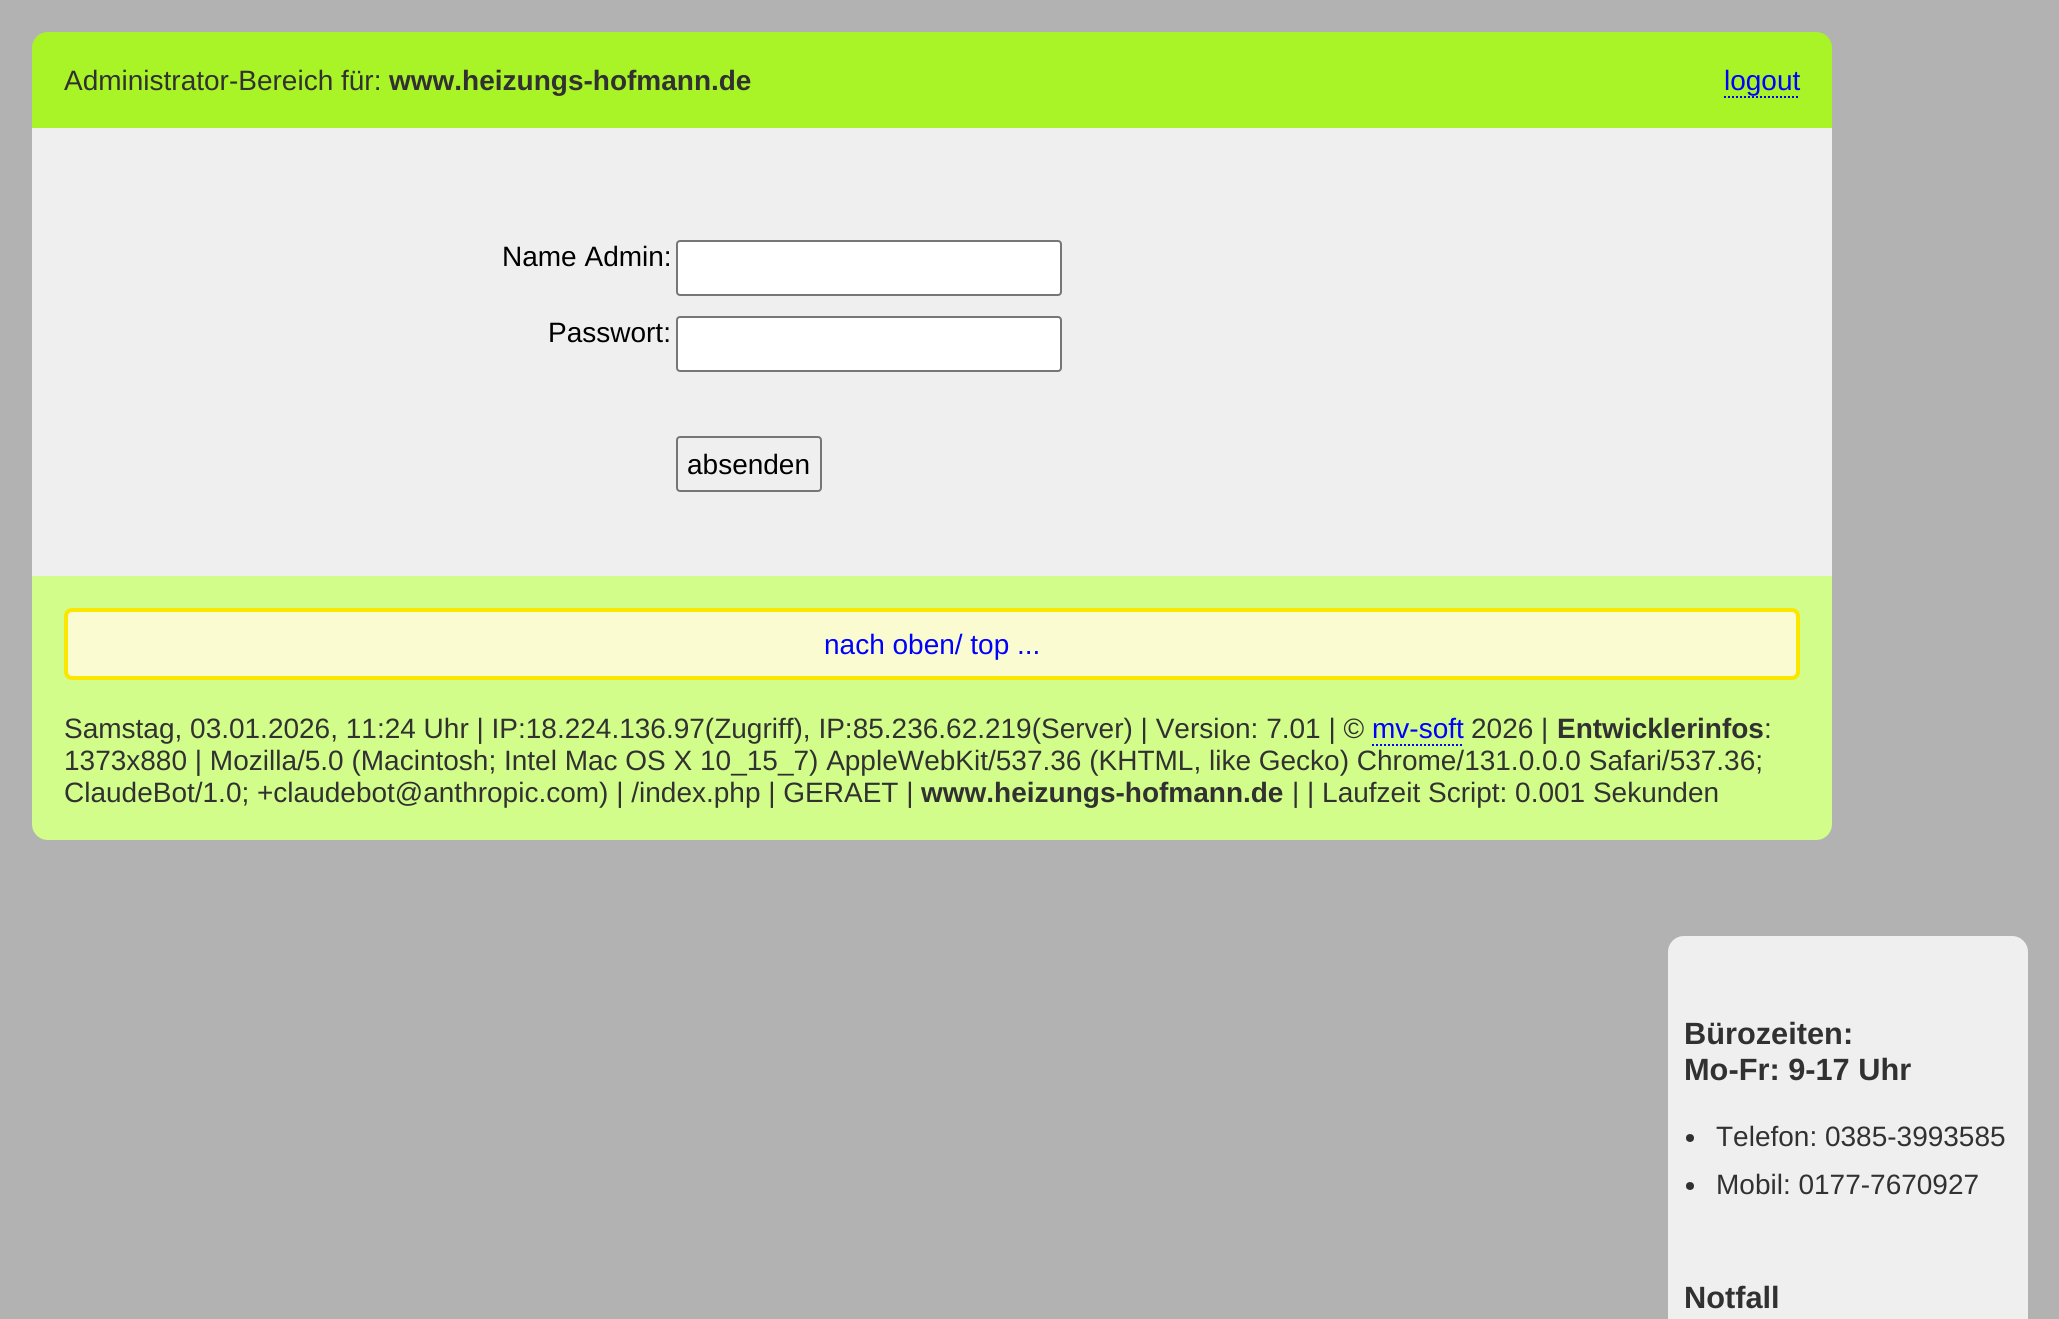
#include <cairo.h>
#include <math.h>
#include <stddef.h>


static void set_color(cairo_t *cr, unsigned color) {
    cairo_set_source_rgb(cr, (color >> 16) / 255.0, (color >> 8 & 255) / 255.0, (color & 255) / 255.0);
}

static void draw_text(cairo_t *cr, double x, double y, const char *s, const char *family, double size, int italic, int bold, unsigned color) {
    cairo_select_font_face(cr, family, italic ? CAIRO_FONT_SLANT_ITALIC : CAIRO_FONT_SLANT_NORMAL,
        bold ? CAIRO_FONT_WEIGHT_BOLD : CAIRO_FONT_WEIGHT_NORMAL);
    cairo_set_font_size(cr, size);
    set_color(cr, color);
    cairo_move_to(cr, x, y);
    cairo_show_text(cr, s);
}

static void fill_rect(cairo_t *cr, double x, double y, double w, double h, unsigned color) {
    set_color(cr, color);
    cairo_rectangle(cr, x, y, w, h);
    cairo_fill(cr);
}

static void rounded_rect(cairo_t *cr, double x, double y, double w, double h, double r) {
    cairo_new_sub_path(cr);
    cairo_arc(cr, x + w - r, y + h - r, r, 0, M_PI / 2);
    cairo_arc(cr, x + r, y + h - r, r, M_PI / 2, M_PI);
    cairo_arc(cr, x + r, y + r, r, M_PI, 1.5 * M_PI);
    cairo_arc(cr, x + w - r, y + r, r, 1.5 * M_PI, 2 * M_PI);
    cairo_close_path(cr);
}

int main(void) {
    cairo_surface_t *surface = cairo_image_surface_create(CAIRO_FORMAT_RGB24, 2059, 1319);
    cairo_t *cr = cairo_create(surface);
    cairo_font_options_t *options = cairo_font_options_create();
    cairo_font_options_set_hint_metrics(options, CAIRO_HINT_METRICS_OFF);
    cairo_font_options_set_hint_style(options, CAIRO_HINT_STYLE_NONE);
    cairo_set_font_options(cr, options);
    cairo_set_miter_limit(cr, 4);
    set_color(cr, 0xB2B2B2);
    cairo_paint(cr);
    set_color(cr, 0xA9F426);
    cairo_new_path(cr);
    cairo_move_to(cr, 48, 32);
    cairo_line_to(cr, 1816, 32);
    cairo_curve_to(cr, 1825, 32, 1832, 39, 1832, 48);
    cairo_line_to(cr, 1832, 128);
    cairo_line_to(cr, 32, 128);
    cairo_line_to(cr, 32, 48);
    cairo_curve_to(cr, 32, 39, 39, 32, 48, 32);
    cairo_close_path(cr);
    cairo_fill(cr);
    draw_text(cr, 64, 90, "Administrator-Bereich für:", "Liberation Sans", 28, 0, 0, 0x313131);
    draw_text(cr, 389, 90, "www.heizungs-hofmann.de", "Liberation Sans", 28, 0, 1, 0x313131);
    draw_text(cr, 1724, 90, "logout", "Liberation Sans", 28, 0, 0, 0x0000FF);
    cairo_new_path(cr);
    cairo_move_to(cr, 1724, 97);
    cairo_line_to(cr, 1800, 97);
    cairo_set_dash(cr, (double[]){2, 2}, 2, 0);
    cairo_stroke(cr);
    fill_rect(cr, 32, 128, 1800, 448, 0xEFEFEF);
    draw_text(cr, 502, 266, "Name Admin:", "Liberation Sans", 28, 0, 0, 0x000000);
    set_color(cr, 0xFFFFFF);
    rounded_rect(cr, 677, 241, 384, 54, 3);
    cairo_fill_preserve(cr);
    set_color(cr, 0x767676);
    cairo_set_dash(cr, NULL, 0, 0);
    cairo_stroke(cr);
    draw_text(cr, 548, 342, "Passwort:", "Liberation Sans", 28, 0, 0, 0x000000);
    set_color(cr, 0xFFFFFF);
    rounded_rect(cr, 677, 317, 384, 54, 3);
    cairo_fill_preserve(cr);
    set_color(cr, 0x767676);
    cairo_stroke(cr);
    rounded_rect(cr, 677, 437, 144, 54, 3);
    cairo_stroke(cr);
    draw_text(cr, 687, 474, "absenden", "Liberation Sans", 28, 0, 0, 0x000000);
    set_color(cr, 0xD3FD8A);
    cairo_new_path(cr);
    cairo_move_to(cr, 32, 576);
    cairo_line_to(cr, 1832, 576);
    cairo_line_to(cr, 1832, 824);
    cairo_curve_to(cr, 1832, 833, 1825, 840, 1816, 840);
    cairo_line_to(cr, 48, 840);
    cairo_curve_to(cr, 39, 840, 32, 833, 32, 824);
    cairo_close_path(cr);
    cairo_fill(cr);
    set_color(cr, 0xFBFBD2);
    rounded_rect(cr, 66, 610, 1732, 68, 6);
    cairo_fill_preserve(cr);
    set_color(cr, 0xFBE600);
    cairo_set_line_width(cr, 4);
    cairo_stroke(cr);
    draw_text(cr, 824, 654, "nach oben/ top ...", "Liberation Sans", 28, 0, 0, 0x0000FF);
    draw_text(cr, 64, 738, "Samstag, 03.01.2026, 11:24 Uhr | IP:18.224.136.97(Zugriff), IP:85.236.62.219(Server) | Version: 7.01 | ©", "Liberation Sans", 28, 0, 0, 0x313131);
    draw_text(cr, 1372, 738, "mv-soft", "Liberation Sans", 28, 0, 0, 0x0000FF);
    cairo_new_path(cr);
    cairo_move_to(cr, 1372, 745);
    cairo_line_to(cr, 1464, 745);
    cairo_set_line_width(cr, 2);
    cairo_set_dash(cr, (double[]){2, 2}, 2, 0);
    cairo_stroke(cr);
    draw_text(cr, 1471, 738, "2026 |", "Liberation Sans", 28, 0, 0, 0x313131);
    draw_text(cr, 1557, 738, "Entwicklerinfos", "Liberation Sans", 28, 0, 1, 0x313131);
    draw_text(cr, 1764, 738, ":", "Liberation Sans", 28, 0, 0, 0x313131);
    draw_text(cr, 64, 770, "1373x880 | Mozilla/5.0 (Macintosh; Intel Mac OS X 10_15_7) AppleWebKit/537.36 (KHTML, like Gecko) Chrome/131.0.0.0 Safari/537.36;", "Liberation Sans", 28, 0, 0, 0x313131);
    draw_text(cr, 64, 802, "ClaudeBot/1.0; +claudebot@anthropic.com) | /index.php | GERAET |", "Liberation Sans", 28, 0, 0, 0x313131);
    draw_text(cr, 921, 802, "www.heizungs-hofmann.de", "Liberation Sans", 28, 0, 1, 0x313131);
    draw_text(cr, 1292, 802, "| | Laufzeit Script: 0.001 Sekunden", "Liberation Sans", 28, 0, 0, 0x313131);
    set_color(cr, 0xEFEFEF);
    rounded_rect(cr, 1668, 936, 360, 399, 16);
    cairo_fill(cr);
    draw_text(cr, 1684, 1044, "Bürozeiten:", "Liberation Sans", 30.75, 0, 1, 0x313131);
    draw_text(cr, 1684, 1080, "Mo-Fr: 9-17 Uhr", "Liberation Sans", 30.75, 0, 1, 0x313131);
    cairo_new_path(cr);
    cairo_arc(cr, 1690, 1138, 4, 0, 2 * M_PI);
    cairo_fill(cr);
    draw_text(cr, 1716, 1146, "Telefon: 0385-3993585", "Liberation Sans", 28, 0, 0, 0x313131);
    cairo_new_path(cr);
    cairo_arc(cr, 1690, 1186, 4, 0, 2 * M_PI);
    cairo_fill(cr);
    draw_text(cr, 1716, 1194, "Mobil: 0177-7670927", "Liberation Sans", 28, 0, 0, 0x313131);
    draw_text(cr, 1684, 1308, "Notfall", "Liberation Sans", 30.75, 0, 1, 0x313131);
    cairo_surface_write_to_png(surface, "output.png");
    cairo_font_options_destroy(options);
    cairo_destroy(cr);
    cairo_surface_destroy(surface);
    return 0;
}
